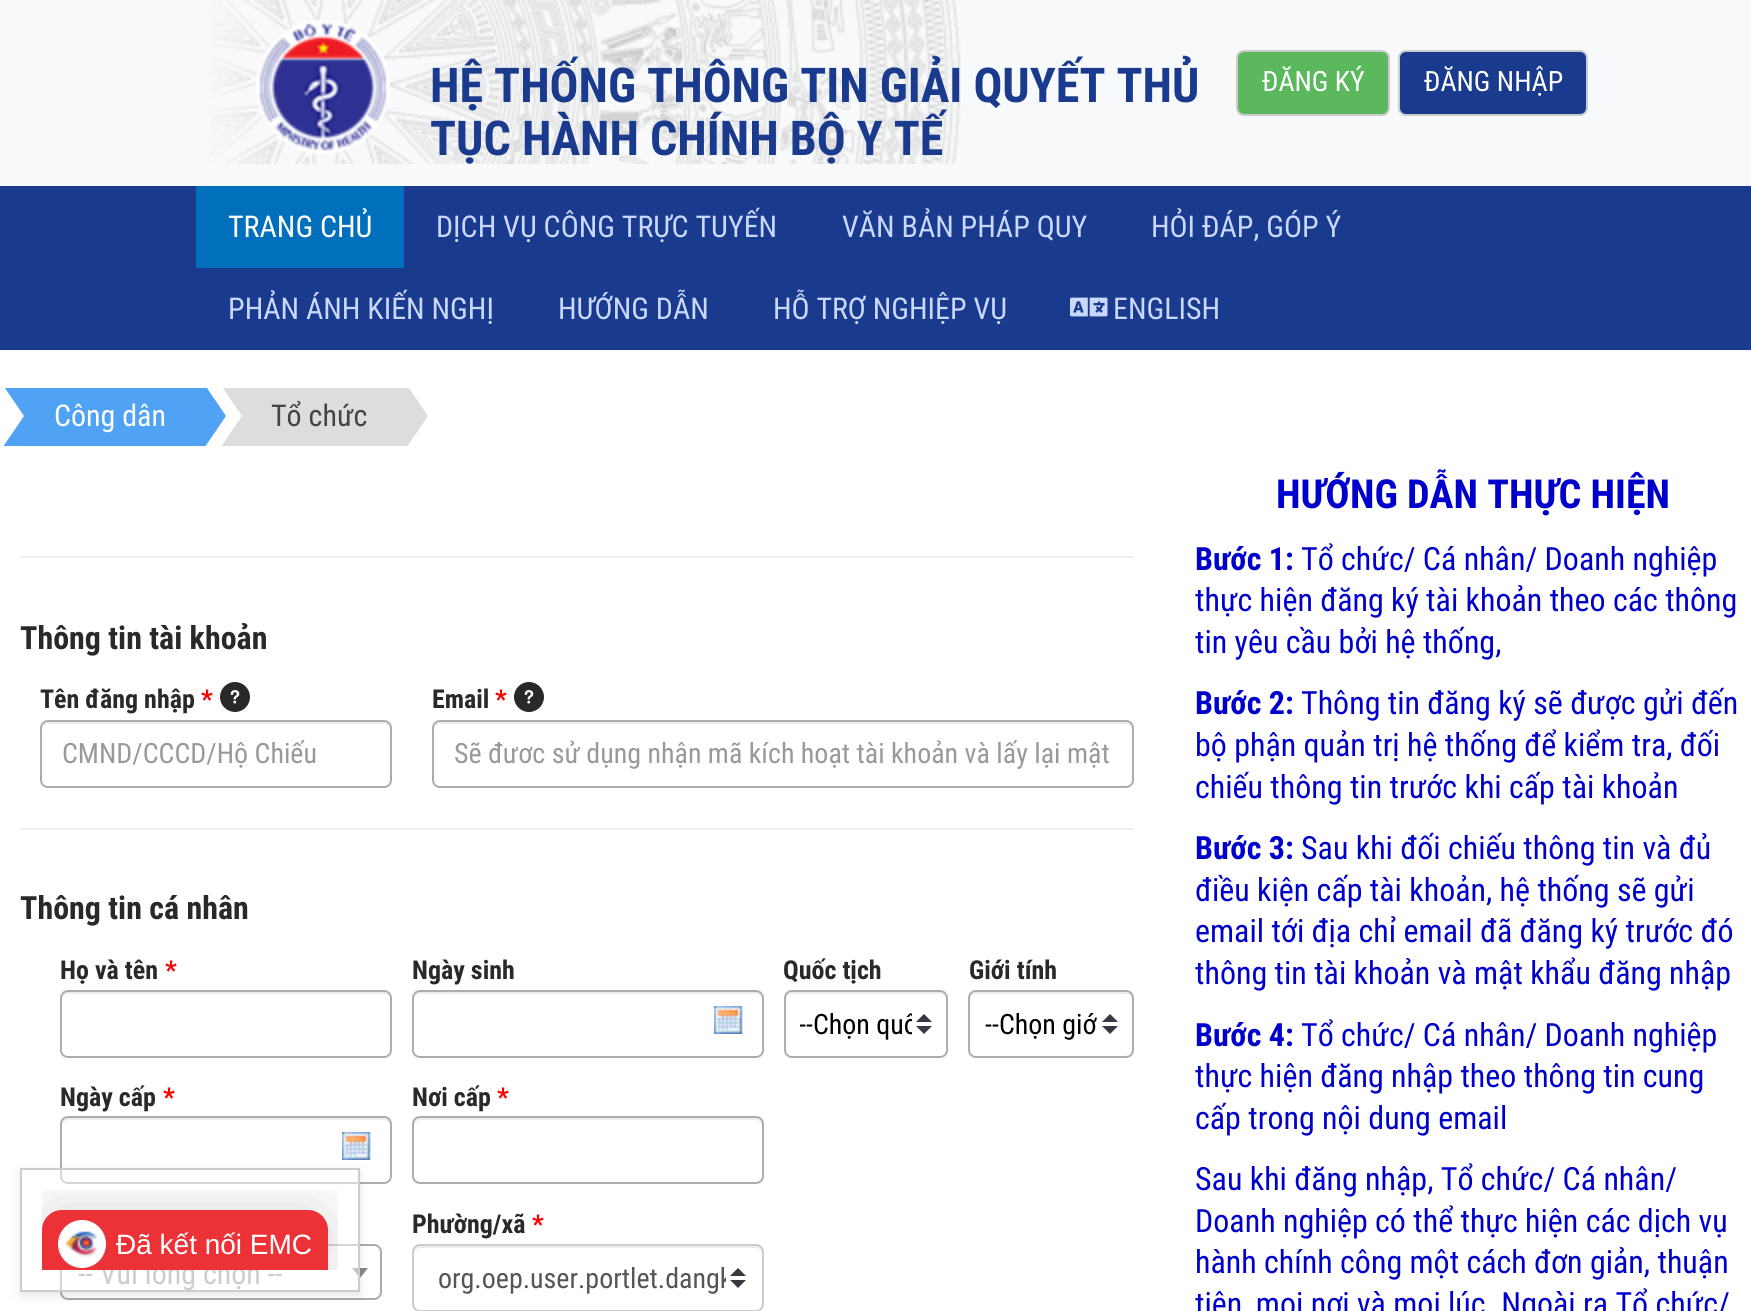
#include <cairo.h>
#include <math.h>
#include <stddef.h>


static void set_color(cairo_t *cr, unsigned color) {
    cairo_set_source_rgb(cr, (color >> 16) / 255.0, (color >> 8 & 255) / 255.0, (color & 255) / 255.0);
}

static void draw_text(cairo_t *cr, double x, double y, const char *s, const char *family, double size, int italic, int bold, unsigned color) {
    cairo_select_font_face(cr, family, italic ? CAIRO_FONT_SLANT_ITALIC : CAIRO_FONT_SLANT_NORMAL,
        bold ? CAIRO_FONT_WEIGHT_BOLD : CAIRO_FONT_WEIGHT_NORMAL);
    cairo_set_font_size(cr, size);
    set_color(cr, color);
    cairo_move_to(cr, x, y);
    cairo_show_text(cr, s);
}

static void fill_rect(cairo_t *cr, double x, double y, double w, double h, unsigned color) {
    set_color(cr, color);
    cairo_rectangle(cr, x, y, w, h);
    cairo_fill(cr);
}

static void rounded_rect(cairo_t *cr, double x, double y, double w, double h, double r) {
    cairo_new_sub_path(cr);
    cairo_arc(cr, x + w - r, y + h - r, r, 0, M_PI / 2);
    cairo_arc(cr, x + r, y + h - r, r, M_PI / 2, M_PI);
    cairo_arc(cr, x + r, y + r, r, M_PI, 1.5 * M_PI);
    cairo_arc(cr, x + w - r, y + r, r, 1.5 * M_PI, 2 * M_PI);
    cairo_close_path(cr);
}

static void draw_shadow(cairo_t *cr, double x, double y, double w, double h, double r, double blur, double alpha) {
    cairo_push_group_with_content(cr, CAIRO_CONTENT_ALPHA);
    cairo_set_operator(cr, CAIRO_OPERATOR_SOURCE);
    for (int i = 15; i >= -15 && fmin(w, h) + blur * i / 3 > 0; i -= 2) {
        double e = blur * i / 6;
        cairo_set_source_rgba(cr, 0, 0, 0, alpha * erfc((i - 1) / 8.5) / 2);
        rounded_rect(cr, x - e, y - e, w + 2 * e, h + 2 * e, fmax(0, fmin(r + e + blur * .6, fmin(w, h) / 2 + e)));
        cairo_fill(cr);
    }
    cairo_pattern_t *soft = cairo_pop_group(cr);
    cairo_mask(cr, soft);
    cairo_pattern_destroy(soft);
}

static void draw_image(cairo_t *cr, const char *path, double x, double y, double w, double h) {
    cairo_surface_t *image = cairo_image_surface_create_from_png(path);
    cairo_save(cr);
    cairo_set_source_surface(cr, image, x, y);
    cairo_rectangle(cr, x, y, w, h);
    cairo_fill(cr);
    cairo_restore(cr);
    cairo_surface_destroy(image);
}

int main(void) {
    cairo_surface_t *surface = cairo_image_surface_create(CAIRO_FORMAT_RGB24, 1751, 1311);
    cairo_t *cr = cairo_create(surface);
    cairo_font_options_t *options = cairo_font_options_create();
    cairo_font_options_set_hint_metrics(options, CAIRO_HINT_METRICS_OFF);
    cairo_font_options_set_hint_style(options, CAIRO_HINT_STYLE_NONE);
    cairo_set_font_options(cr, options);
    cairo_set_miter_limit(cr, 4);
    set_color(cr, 0xFFFFFF);
    cairo_paint(cr);
    fill_rect(cr, 0, 0, 1751, 186, 0xF8F9FA);
    draw_image(cr, "assets/img1.png", 211, 0, 750, 164);
    draw_image(cr, "assets/img2.png", 256, 20, 134, 134);
    draw_text(cr, 430, 102, "HỆ THỐNG THÔNG TIN GIẢI QUYẾT THỦ", "Roboto Condensed", 48, 0, 1, 0x193A8D);
    draw_text(cr, 430, 155, "TỤC HÀNH CHÍNH BỘ Y TẾ", "Roboto Condensed", 48, 0, 1, 0x193A8D);
    set_color(cr, 0x5CB85C);
    rounded_rect(cr, 1237, 51, 152, 64, 7);
    cairo_fill_preserve(cr);
    set_color(cr, 0xCCCCCC);
    cairo_stroke(cr);
    draw_text(cr, 1262, 91, "ĐĂNG KÝ", "Roboto Condensed", 28, 0, 0, 0xFFFFFF);
    set_color(cr, 0x193A8D);
    rounded_rect(cr, 1399, 51, 188, 64, 7);
    cairo_fill_preserve(cr);
    set_color(cr, 0xCCCCCC);
    cairo_stroke(cr);
    draw_text(cr, 1424, 91, "ĐĂNG NHẬP", "Roboto Condensed", 28, 0, 0, 0xFFFFFF);
    fill_rect(cr, 0, 186, 1751, 164, 0x193A8D);
    fill_rect(cr, 196, 186, 208, 82, 0x006FBC);
    draw_text(cr, 228, 237, "TRANG CHỦ", "Roboto Condensed", 30, 0, 0, 0xFFFFFF);
    draw_text(cr, 436, 237, "DỊCH VỤ CÔNG TRỰC TUYẾN", "Roboto Condensed", 30, 0, 0, 0xC8D8FF);
    draw_text(cr, 842, 237, "VĂN BẢN PHÁP QUY", "Roboto Condensed", 30, 0, 0, 0xC8D8FF);
    draw_text(cr, 1151, 237, "HỎI ĐÁP, GÓP Ý", "Roboto Condensed", 30, 0, 0, 0xC8D8FF);
    draw_text(cr, 228, 319, "PHẢN ÁNH KIẾN NGHỊ", "Roboto Condensed", 30, 0, 0, 0xC8D8FF);
    draw_text(cr, 558, 319, "HƯỚNG DẪN", "Roboto Condensed", 30, 0, 0, 0xC8D8FF);
    draw_text(cr, 773, 319, "HỖ TRỢ NGHIỆP VỤ", "Roboto Condensed", 30, 0, 0, 0xC8D8FF);
    draw_image(cr, "assets/img3.png", 1070, 297, 38, 20);
    draw_text(cr, 1113, 319, "ENGLISH", "Roboto Condensed", 30, 0, 0, 0xC8D8FF);
    fill_rect(cr, 24, 388, 172, 58, 0x50A2F5);
    cairo_save(cr);
    cairo_rectangle(cr, 0, 388, 1068, 58);
    cairo_clip(cr);
    cairo_new_path(cr);
    cairo_move_to(cr, -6, 372);
    cairo_line_to(cr, 24, 372);
    cairo_line_to(cr, 24, 416);
    cairo_close_path(cr);
    cairo_move_to(cr, 24, 460);
    cairo_line_to(cr, -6, 460);
    cairo_line_to(cr, 24, 416);
    cairo_close_path(cr);
    cairo_fill(cr);
    cairo_restore(cr);
    draw_text(cr, 54, 426, "Công dân", "Roboto Condensed", 30, 0, 0, 0xFFFFFF);
    cairo_save(cr);
    cairo_rectangle(cr, 0, 388, 1068, 58);
    cairo_clip(cr);
    set_color(cr, 0x50A2F5);
    cairo_new_path(cr);
    cairo_move_to(cr, 196, 460);
    cairo_line_to(cr, 196, 372);
    cairo_line_to(cr, 226, 416);
    cairo_close_path(cr);
    cairo_fill(cr);
    cairo_restore(cr);
    fill_rect(cr, 242, 388, 156, 58, 0xDDDDDD);
    cairo_save(cr);
    cairo_rectangle(cr, 0, 388, 1068, 58);
    cairo_clip(cr);
    cairo_new_path(cr);
    cairo_move_to(cr, 212, 372);
    cairo_line_to(cr, 242, 372);
    cairo_line_to(cr, 242, 416);
    cairo_close_path(cr);
    cairo_move_to(cr, 242, 460);
    cairo_line_to(cr, 212, 460);
    cairo_line_to(cr, 242, 416);
    cairo_close_path(cr);
    cairo_fill(cr);
    cairo_restore(cr);
    draw_text(cr, 271, 426, "Tổ chức", "Roboto Condensed", 30, 0, 0, 0x444444);
    cairo_save(cr);
    cairo_rectangle(cr, 0, 388, 1068, 58);
    cairo_clip(cr);
    set_color(cr, 0xDDDDDD);
    cairo_new_path(cr);
    cairo_move_to(cr, 398, 460);
    cairo_line_to(cr, 398, 372);
    cairo_line_to(cr, 428, 416);
    cairo_close_path(cr);
    cairo_fill(cr);
    cairo_restore(cr);
    fill_rect(cr, 20, 556, 1114, 2, 0xEEEEEE);
    draw_text(cr, 20, 649, "Thông tin tài khoản", "Roboto Condensed", 32, 0, 1, 0x292929);
    draw_text(cr, 40, 708, "Tên đăng nhập", "Roboto Condensed", 26, 0, 1, 0x292929);
    draw_text(cr, 201, 708, "*", "Roboto Condensed", 26, 0, 1, 0xFF0000);
    draw_image(cr, "assets/img4.png", 220, 682, 30, 30);
    set_color(cr, 0xECECEC);
    cairo_new_path(cr);
    cairo_move_to(cr, 48, 724);
    cairo_line_to(cr, 384, 724);
    cairo_curve_to(cr, 387, 724, 390, 727, 390, 730);
    cairo_line_to(cr, 390, 728);
    cairo_curve_to(cr, 390, 725, 387, 722, 384, 722);
    cairo_line_to(cr, 48, 722);
    cairo_curve_to(cr, 45, 722, 42, 725, 42, 728);
    cairo_line_to(cr, 42, 730);
    cairo_curve_to(cr, 42, 727, 45, 724, 48, 724);
    cairo_close_path(cr);
    cairo_fill(cr);
    rounded_rect(cr, 41, 721, 350, 66, 7);
    set_color(cr, 0xADADAD);
    cairo_stroke(cr);
    draw_text(cr, 62, 763, "CMND/CCCD/Hộ Chiếu", "Roboto Condensed", 28, 0, 0, 0x999999);
    draw_text(cr, 432, 708, "Email", "Roboto Condensed", 26, 0, 1, 0x292929);
    draw_text(cr, 495, 708, "*", "Roboto Condensed", 26, 0, 1, 0xFF0000);
    draw_image(cr, "assets/img4.png", 514, 682, 30, 30);
    set_color(cr, 0xECECEC);
    cairo_new_path(cr);
    cairo_move_to(cr, 440, 724);
    cairo_line_to(cr, 1126, 724);
    cairo_curve_to(cr, 1129, 724, 1132, 727, 1132, 730);
    cairo_line_to(cr, 1132, 728);
    cairo_curve_to(cr, 1132, 725, 1129, 722, 1126, 722);
    cairo_line_to(cr, 440, 722);
    cairo_curve_to(cr, 437, 722, 434, 725, 434, 728);
    cairo_line_to(cr, 434, 730);
    cairo_curve_to(cr, 434, 727, 437, 724, 440, 724);
    cairo_close_path(cr);
    cairo_fill(cr);
    rounded_rect(cr, 433, 721, 700, 66, 7);
    set_color(cr, 0xADADAD);
    cairo_stroke(cr);
    draw_text(cr, 454, 763, "Sẽ đươc sử dụng nhận mã kích hoạt tài khoản và lấy lại mật", "Roboto Condensed", 28, 0, 0, 0x999999);
    fill_rect(cr, 20, 828, 1114, 2, 0xEEEEEE);
    draw_text(cr, 20, 919, "Thông tin cá nhân", "Roboto Condensed", 32, 0, 1, 0x292929);
    draw_text(cr, 60, 979, "Họ và tên", "Roboto Condensed", 26, 0, 1, 0x292929);
    draw_text(cr, 165, 979, "*", "Roboto Condensed", 26, 0, 1, 0xFF0000);
    set_color(cr, 0xECECEC);
    cairo_new_path(cr);
    cairo_move_to(cr, 68, 994);
    cairo_line_to(cr, 384, 994);
    cairo_curve_to(cr, 387, 994, 390, 997, 390, 1000);
    cairo_curve_to(cr, 390, 996, 389, 992, 384, 992);
    cairo_line_to(cr, 68, 992);
    cairo_curve_to(cr, 63, 992, 62, 996, 62, 1000);
    cairo_curve_to(cr, 62, 997, 65, 994, 68, 994);
    cairo_close_path(cr);
    cairo_fill(cr);
    rounded_rect(cr, 61, 991, 330, 66, 7);
    set_color(cr, 0xADADAD);
    cairo_stroke(cr);
    draw_text(cr, 412, 979, "Ngày sinh", "Roboto Condensed", 26, 0, 1, 0x292929);
    draw_image(cr, "assets/img5.png", 714, 1006, 29, 28);
    set_color(cr, 0xECECEC);
    cairo_new_path(cr);
    cairo_move_to(cr, 420, 994);
    cairo_line_to(cr, 756, 994);
    cairo_curve_to(cr, 759, 994, 762, 997, 762, 1000);
    cairo_line_to(cr, 762, 998);
    cairo_curve_to(cr, 762, 995, 759, 992, 756, 992);
    cairo_line_to(cr, 420, 992);
    cairo_curve_to(cr, 417, 992, 414, 995, 414, 998);
    cairo_line_to(cr, 414, 1000);
    cairo_curve_to(cr, 414, 997, 417, 994, 420, 994);
    cairo_close_path(cr);
    cairo_fill(cr);
    rounded_rect(cr, 413, 991, 350, 66, 7);
    set_color(cr, 0xADADAD);
    cairo_stroke(cr);
    draw_text(cr, 783, 979, "Quốc tịch", "Roboto Condensed", 26, 0, 1, 0x292929);
    set_color(cr, 0x343A40);
    cairo_new_path(cr);
    cairo_move_to(cr, 924, 1014);
    cairo_line_to(cr, 916, 1022);
    cairo_line_to(cr, 932, 1022);
    cairo_close_path(cr);
    cairo_move_to(cr, 924, 1034);
    cairo_line_to(cr, 916, 1026);
    cairo_line_to(cr, 932, 1026);
    cairo_close_path(cr);
    cairo_fill(cr);
    set_color(cr, 0xECECEC);
    cairo_new_path(cr);
    cairo_move_to(cr, 792, 994);
    cairo_line_to(cr, 940, 994);
    cairo_curve_to(cr, 943, 994, 946, 997, 946, 1000);
    cairo_line_to(cr, 946, 998);
    cairo_curve_to(cr, 946, 995, 943, 992, 940, 992);
    cairo_line_to(cr, 792, 992);
    cairo_curve_to(cr, 789, 992, 786, 995, 786, 998);
    cairo_line_to(cr, 786, 1000);
    cairo_curve_to(cr, 786, 997, 789, 994, 792, 994);
    cairo_close_path(cr);
    cairo_fill(cr);
    rounded_rect(cr, 785, 991, 162, 66, 7);
    set_color(cr, 0xADADAD);
    cairo_stroke(cr);
    cairo_save(cr);
    cairo_rectangle(cr, 800, 1004, 112, 40);
    cairo_clip(cr);
    draw_text(cr, 799, 1034, "--Chọn quố", "Roboto Condensed", 28, 0, 0, 0x000000);
    cairo_restore(cr);
    draw_text(cr, 969, 979, "Giới tính", "Roboto Condensed", 26, 0, 1, 0x292929);
    set_color(cr, 0x343A40);
    cairo_new_path(cr);
    cairo_move_to(cr, 1110, 1014);
    cairo_line_to(cr, 1102, 1022);
    cairo_line_to(cr, 1118, 1022);
    cairo_close_path(cr);
    cairo_move_to(cr, 1110, 1034);
    cairo_line_to(cr, 1102, 1026);
    cairo_line_to(cr, 1118, 1026);
    cairo_close_path(cr);
    cairo_fill(cr);
    set_color(cr, 0xECECEC);
    cairo_new_path(cr);
    cairo_move_to(cr, 976, 994);
    cairo_line_to(cr, 1126, 994);
    cairo_curve_to(cr, 1129, 994, 1132, 997, 1132, 1000);
    cairo_line_to(cr, 1132, 998);
    cairo_curve_to(cr, 1132, 995, 1129, 992, 1126, 992);
    cairo_line_to(cr, 976, 992);
    cairo_curve_to(cr, 973, 992, 970, 995, 970, 998);
    cairo_line_to(cr, 970, 1000);
    cairo_curve_to(cr, 970, 997, 973, 994, 976, 994);
    cairo_close_path(cr);
    cairo_fill(cr);
    rounded_rect(cr, 969, 991, 164, 66, 7);
    set_color(cr, 0xADADAD);
    cairo_stroke(cr);
    draw_text(cr, 985, 1034, "--Chọn giớ", "Roboto Condensed", 28, 0, 0, 0x000000);
    draw_text(cr, 60, 1106, "Ngày cấp", "Roboto Condensed", 26, 0, 1, 0x292929);
    draw_text(cr, 163, 1106, "*", "Roboto Condensed", 26, 0, 1, 0xFF0000);
    draw_image(cr, "assets/img5.png", 342, 1132, 29, 28);
    set_color(cr, 0xECECEC);
    cairo_new_path(cr);
    cairo_move_to(cr, 68, 1120);
    cairo_line_to(cr, 384, 1120);
    cairo_curve_to(cr, 387, 1120, 390, 1123, 390, 1126);
    cairo_curve_to(cr, 390, 1122, 389, 1118, 384, 1118);
    cairo_line_to(cr, 68, 1118);
    cairo_curve_to(cr, 63, 1118, 62, 1122, 62, 1126);
    cairo_curve_to(cr, 62, 1123, 65, 1120, 68, 1120);
    cairo_close_path(cr);
    cairo_fill(cr);
    rounded_rect(cr, 61, 1117, 330, 66, 7);
    set_color(cr, 0xADADAD);
    cairo_stroke(cr);
    draw_text(cr, 412, 1106, "Nơi cấp", "Roboto Condensed", 26, 0, 1, 0x292929);
    draw_text(cr, 497, 1106, "*", "Roboto Condensed", 26, 0, 1, 0xFF0000);
    set_color(cr, 0xECECEC);
    cairo_new_path(cr);
    cairo_move_to(cr, 420, 1120);
    cairo_line_to(cr, 756, 1120);
    cairo_curve_to(cr, 759, 1120, 762, 1123, 762, 1126);
    cairo_line_to(cr, 762, 1124);
    cairo_curve_to(cr, 762, 1121, 759, 1118, 756, 1118);
    cairo_line_to(cr, 420, 1118);
    cairo_curve_to(cr, 417, 1118, 414, 1121, 414, 1124);
    cairo_line_to(cr, 414, 1126);
    cairo_curve_to(cr, 414, 1123, 417, 1120, 420, 1120);
    cairo_close_path(cr);
    cairo_fill(cr);
    rounded_rect(cr, 413, 1117, 350, 66, 7);
    set_color(cr, 0xADADAD);
    cairo_stroke(cr);
    rounded_rect(cr, 61, 1245, 320, 54, 7);
    set_color(cr, 0xAAAAAA);
    cairo_stroke(cr);
    draw_text(cr, 78, 1284, "-- Vui lòng chọn --", "Roboto Condensed", 30, 0, 0, 0x999999);
    set_color(cr, 0x888888);
    cairo_new_path(cr);
    cairo_move_to(cr, 352, 1268);
    cairo_line_to(cr, 368, 1268);
    cairo_line_to(cr, 360, 1278);
    cairo_close_path(cr);
    cairo_fill(cr);
    draw_text(cr, 412, 1233, "Phường/xã", "Roboto Condensed", 26, 0, 1, 0x292929);
    draw_text(cr, 532, 1233, "*", "Roboto Condensed", 26, 0, 1, 0xFF0000);
    set_color(cr, 0x343A40);
    cairo_new_path(cr);
    cairo_move_to(cr, 738, 1268);
    cairo_line_to(cr, 730, 1276);
    cairo_line_to(cr, 746, 1276);
    cairo_close_path(cr);
    cairo_move_to(cr, 738, 1288);
    cairo_line_to(cr, 730, 1280);
    cairo_line_to(cr, 746, 1280);
    cairo_close_path(cr);
    cairo_fill(cr);
    set_color(cr, 0xECECEC);
    cairo_new_path(cr);
    cairo_move_to(cr, 420, 1248);
    cairo_line_to(cr, 756, 1248);
    cairo_curve_to(cr, 759, 1248, 762, 1251, 762, 1254);
    cairo_line_to(cr, 762, 1252);
    cairo_curve_to(cr, 762, 1249, 759, 1246, 756, 1246);
    cairo_line_to(cr, 420, 1246);
    cairo_curve_to(cr, 417, 1246, 414, 1249, 414, 1252);
    cairo_line_to(cr, 414, 1254);
    cairo_curve_to(cr, 414, 1251, 417, 1248, 420, 1248);
    cairo_close_path(cr);
    cairo_fill(cr);
    rounded_rect(cr, 413, 1245, 350, 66, 7);
    set_color(cr, 0xCCCCCC);
    cairo_stroke(cr);
    cairo_save(cr);
    cairo_rectangle(cr, 438, 1258, 288, 40);
    cairo_clip(cr);
    draw_text(cr, 438, 1288, "org.oep.user.portlet.dangk", "Roboto Condensed", 28, 0, 0, 0x555555);
    cairo_restore(cr);
    draw_text(cr, 1276, 508, "HƯỚNG DẪN THỰC HIỆN", "Roboto Condensed", 40, 0, 1, 0x0000CD);
    draw_text(cr, 1195, 570, "Bước 1:", "Roboto Condensed", 32, 0, 1, 0x0000CD);
    draw_text(cr, 1301, 570, "Tổ chức/ Cá nhân/ Doanh nghiệp", "Roboto Condensed", 32, 0, 0, 0x0000CD);
    draw_text(cr, 1195, 611, "thực hiện đăng ký tài khoản theo các thông", "Roboto Condensed", 32, 0, 0, 0x0000CD);
    draw_text(cr, 1195, 653, "tin yêu cầu bởi hệ thống,", "Roboto Condensed", 32, 0, 0, 0x0000CD);
    draw_text(cr, 1195, 714, "Bước 2:", "Roboto Condensed", 32, 0, 1, 0x0000CD);
    draw_text(cr, 1301, 714, "Thông tin đăng ký sẽ được gửi đến", "Roboto Condensed", 32, 0, 0, 0x0000CD);
    draw_text(cr, 1195, 756, "bộ phận quản trị hệ thống để kiểm tra, đối", "Roboto Condensed", 32, 0, 0, 0x0000CD);
    draw_text(cr, 1195, 798, "chiếu thông tin trước khi cấp tài khoản", "Roboto Condensed", 32, 0, 0, 0x0000CD);
    draw_text(cr, 1195, 859, "Bước 3:", "Roboto Condensed", 32, 0, 1, 0x0000CD);
    draw_text(cr, 1301, 859, "Sau khi đối chiếu thông tin và đủ", "Roboto Condensed", 32, 0, 0, 0x0000CD);
    draw_text(cr, 1195, 901, "điều kiện cấp tài khoản, hệ thống sẽ gửi", "Roboto Condensed", 32, 0, 0, 0x0000CD);
    draw_text(cr, 1195, 942, "email tới địa chỉ email đã đăng ký trước đó", "Roboto Condensed", 32, 0, 0, 0x0000CD);
    draw_text(cr, 1195, 984, "thông tin tài khoản và mật khẩu đăng nhập", "Roboto Condensed", 32, 0, 0, 0x0000CD);
    draw_text(cr, 1195, 1046, "Bước 4:", "Roboto Condensed", 32, 0, 1, 0x0000CD);
    draw_text(cr, 1301, 1046, "Tổ chức/ Cá nhân/ Doanh nghiệp", "Roboto Condensed", 32, 0, 0, 0x0000CD);
    draw_text(cr, 1195, 1087, "thực hiện đăng nhập theo thông tin cung", "Roboto Condensed", 32, 0, 0, 0x0000CD);
    draw_text(cr, 1195, 1129, "cấp trong nội dung email", "Roboto Condensed", 32, 0, 0, 0x0000CD);
    draw_text(cr, 1195, 1190, "Sau khi đăng nhập, Tổ chức/ Cá nhân/", "Roboto Condensed", 32, 0, 0, 0x0000CD);
    draw_text(cr, 1195, 1232, "Doanh nghiệp có thể thực hiện các dịch vụ", "Roboto Condensed", 32, 0, 0, 0x0000CD);
    draw_text(cr, 1195, 1273, "hành chính công một cách đơn giản, thuận", "Roboto Condensed", 32, 0, 0, 0x0000CD);
    draw_text(cr, 1195, 1315, "tiện, mọi nơi và mọi lúc. Ngoài ra Tổ chức/", "Roboto Condensed", 32, 0, 0, 0x0000CD);
    cairo_save(cr);
    cairo_set_fill_rule(cr, CAIRO_FILL_RULE_EVEN_ODD);
    cairo_new_path(cr);
    cairo_move_to(cr, 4, 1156);
    cairo_line_to(cr, 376, 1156);
    cairo_line_to(cr, 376, 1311);
    cairo_line_to(cr, 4, 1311);
    cairo_close_path(cr);
    cairo_move_to(cr, 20, 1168);
    cairo_line_to(cr, 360, 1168);
    cairo_line_to(cr, 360, 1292);
    cairo_line_to(cr, 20, 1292);
    cairo_close_path(cr);
    cairo_clip(cr);
    set_color(cr, 0x000000);
    draw_shadow(cr, 20, 1172, 340, 124, 0, 5, 0.1);
    cairo_restore(cr);
    cairo_set_source_rgba(cr, 1, 1, 1, 0.5);
    cairo_rectangle(cr, 60, 1170, 298, 120);
    cairo_fill(cr);
    cairo_rectangle(cr, 21, 1169, 338, 122);
    set_color(cr, 0xCCCCCC);
    cairo_stroke(cr);
    cairo_save(cr);
    cairo_rectangle(cr, 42, 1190, 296, 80);
    cairo_clip(cr);
    set_color(cr, 0x000000);
    draw_shadow(cr, 42, 1208, 286, 68, 20, 30, 0.15);
    cairo_restore(cr);
    set_color(cr, 0xEC3237);
    cairo_new_path(cr);
    cairo_move_to(cr, 62, 1210);
    cairo_line_to(cr, 308, 1210);
    cairo_curve_to(cr, 319, 1210, 328, 1219, 328, 1230);
    cairo_line_to(cr, 328, 1270);
    cairo_line_to(cr, 42, 1270);
    cairo_line_to(cr, 42, 1230);
    cairo_curve_to(cr, 42, 1219, 51, 1210, 62, 1210);
    cairo_close_path(cr);
    cairo_fill(cr);
    set_color(cr, 0xFFFFFF);
    cairo_arc(cr, 82, 1244, 24, 0, 2 * M_PI);
    cairo_fill(cr);
    draw_image(cr, "assets/img6.png", 66, 1231, 32, 26);
    draw_text(cr, 116, 1254, "Đã kết nối EMC", "Liberation Sans", 28, 0, 0, 0xFFFFFF);
    cairo_surface_write_to_png(surface, "output.png");
    cairo_font_options_destroy(options);
    cairo_destroy(cr);
    cairo_surface_destroy(surface);
    return 0;
}
